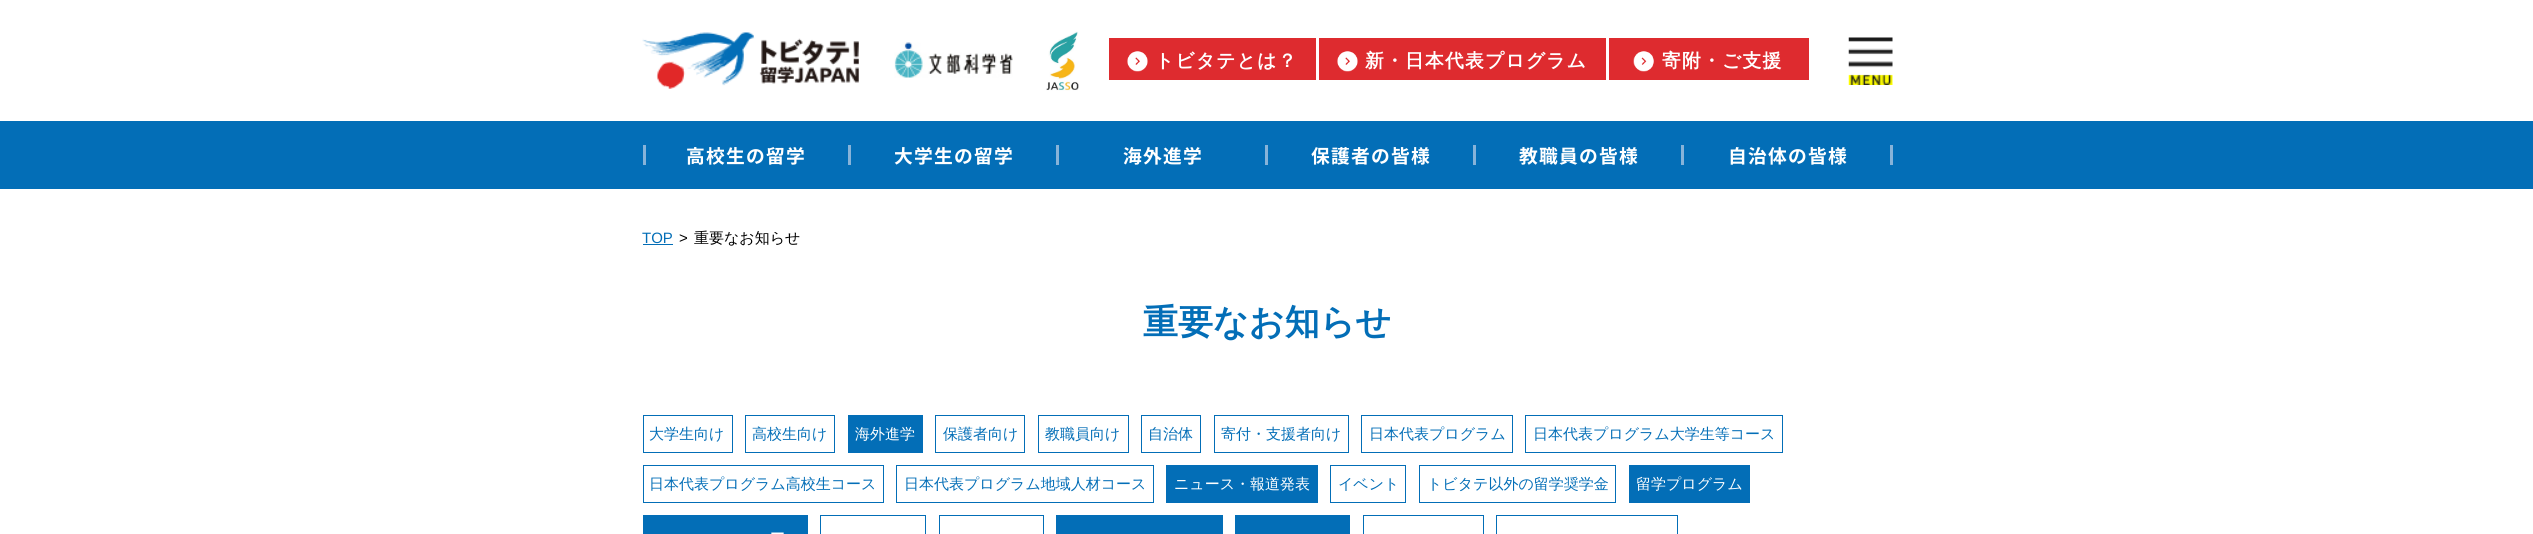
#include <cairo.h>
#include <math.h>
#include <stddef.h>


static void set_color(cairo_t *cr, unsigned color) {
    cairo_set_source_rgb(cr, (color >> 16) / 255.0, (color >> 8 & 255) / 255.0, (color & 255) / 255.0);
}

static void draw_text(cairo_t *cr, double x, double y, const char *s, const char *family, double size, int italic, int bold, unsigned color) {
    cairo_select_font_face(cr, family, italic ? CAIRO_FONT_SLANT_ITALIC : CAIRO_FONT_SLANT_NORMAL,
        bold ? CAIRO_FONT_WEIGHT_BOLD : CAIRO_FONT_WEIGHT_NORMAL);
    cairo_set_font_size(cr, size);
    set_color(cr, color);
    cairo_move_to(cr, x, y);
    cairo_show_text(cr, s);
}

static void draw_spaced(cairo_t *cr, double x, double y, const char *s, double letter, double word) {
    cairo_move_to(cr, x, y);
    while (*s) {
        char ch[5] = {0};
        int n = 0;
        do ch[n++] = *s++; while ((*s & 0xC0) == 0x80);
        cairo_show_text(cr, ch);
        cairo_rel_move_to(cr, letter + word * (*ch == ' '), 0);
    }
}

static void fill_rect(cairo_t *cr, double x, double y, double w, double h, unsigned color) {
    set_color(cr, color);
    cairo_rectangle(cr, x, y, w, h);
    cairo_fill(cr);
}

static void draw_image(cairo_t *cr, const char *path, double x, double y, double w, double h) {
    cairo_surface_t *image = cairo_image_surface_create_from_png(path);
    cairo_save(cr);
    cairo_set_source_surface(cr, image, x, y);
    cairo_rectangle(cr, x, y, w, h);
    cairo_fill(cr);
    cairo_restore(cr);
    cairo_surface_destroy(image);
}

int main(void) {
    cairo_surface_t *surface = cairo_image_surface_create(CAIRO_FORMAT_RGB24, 2533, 534);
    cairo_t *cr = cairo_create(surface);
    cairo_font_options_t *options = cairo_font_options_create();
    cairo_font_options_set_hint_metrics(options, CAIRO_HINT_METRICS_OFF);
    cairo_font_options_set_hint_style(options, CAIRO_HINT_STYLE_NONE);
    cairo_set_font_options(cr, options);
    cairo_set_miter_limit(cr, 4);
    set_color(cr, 0xFFFFFF);
    cairo_paint(cr);
    draw_image(cr, "assets/img1.png", 642, 32, 217, 57);
    draw_image(cr, "assets/img2.png", 894, 42, 119, 36);
    draw_image(cr, "assets/img3.png", 1046, 31, 33, 60);
    fill_rect(cr, 1109, 38, 207, 42, 0xDE2B2F);
    draw_image(cr, "assets/img4.png", 1127, 51, 21, 21);
    cairo_select_font_face(cr, "WenQuanYi Zen Hei", CAIRO_FONT_SLANT_NORMAL, CAIRO_FONT_WEIGHT_BOLD);
    cairo_set_font_size(cr, 18.75);
    set_color(cr, 0xFFFFFF);
    draw_spaced(cr, 1155, 67, "トビタテとは？", 1.25, 0);
    fill_rect(cr, 1319, 38, 287, 42, 0xDE2B2F);
    draw_image(cr, "assets/img4.png", 1337, 51, 21, 21);
    set_color(cr, 0xFFFFFF);
    draw_spaced(cr, 1365, 67, "新・日本代表プログラム", 1.25, 0);
    fill_rect(cr, 1609, 38, 200, 42, 0xDE2B2F);
    draw_image(cr, "assets/img5.png", 1633, 51, 21, 21);
    set_color(cr, 0xFFFFFF);
    draw_spaced(cr, 1662, 67, "寄附・ご支援", 1.25, 0);
    draw_image(cr, "assets/img6.png", 1848, 37, 45, 48);
    fill_rect(cr, 0, 121, 2533, 68, 0x036EB7);
    fill_rect(cr, 643, 145, 3, 20, 0x87B3D9);
    cairo_select_font_face(cr, "Noto Sans JP", CAIRO_FONT_SLANT_NORMAL, CAIRO_FONT_WEIGHT_BOLD);
    set_color(cr, 0xFFFFFF);
    draw_spaced(cr, 686, 163, "高校生の留学", 1.25, 0);
    fill_rect(cr, 848, 145, 3, 20, 0x87B3D9);
    set_color(cr, 0xFFFFFF);
    draw_spaced(cr, 894, 163, "大学生の留学", 1.25, 0);
    fill_rect(cr, 1056, 145, 3, 20, 0x87B3D9);
    set_color(cr, 0xFFFFFF);
    draw_spaced(cr, 1123, 163, "海外進学", 1.25, 0);
    fill_rect(cr, 1265, 145, 3, 20, 0x87B3D9);
    set_color(cr, 0xFFFFFF);
    draw_spaced(cr, 1311, 163, "保護者の皆様", 1.25, 0);
    fill_rect(cr, 1473, 145, 3, 20, 0x87B3D9);
    set_color(cr, 0xFFFFFF);
    draw_spaced(cr, 1519, 163, "教職員の皆様", 1.25, 0);
    fill_rect(cr, 1681, 145, 3, 20, 0x87B3D9);
    set_color(cr, 0xFFFFFF);
    draw_spaced(cr, 1728, 163, "自治体の皆様", 1.25, 0);
    fill_rect(cr, 1890, 145, 3, 20, 0x87B3D9);
    draw_text(cr, 642, 243, "TOP", "Liberation Sans", 15, 0, 0, 0x036EB7);
    fill_rect(cr, 643, 244, 30, 1, 0x036EB7);
    draw_text(cr, 679, 243, ">", "Liberation Sans", 15, 0, 0, 0x000000);
    draw_text(cr, 694, 243, "重要なお知らせ", "WenQuanYi Zen Hei Medium", 15, 0, 0, 0x000000);
    draw_text(cr, 1143, 334, "重要なお知らせ", "WenQuanYi Zen Hei", 35, 0, 1, 0x036EB7);
    cairo_rectangle(cr, 643.5, 415.5, 89, 37);
    cairo_set_line_width(cr, 1);
    cairo_stroke(cr);
    draw_text(cr, 649, 439, "大学生向け", "WenQuanYi Zen Hei Medium", 15, 0, 0, 0x036EB7);
    cairo_rectangle(cr, 745.5, 415.5, 89, 37);
    cairo_stroke(cr);
    draw_text(cr, 752, 439, "高校生向け", "WenQuanYi Zen Hei Medium", 15, 0, 0, 0x036EB7);
    fill_rect(cr, 848, 415, 75, 38, 0x036EB7);
    draw_text(cr, 855, 439, "海外進学", "WenQuanYi Zen Hei Medium", 15, 0, 0, 0xFFFFFF);
    cairo_rectangle(cr, 935.5, 415.5, 89, 37);
    set_color(cr, 0x036EB7);
    cairo_stroke(cr);
    draw_text(cr, 943, 439, "保護者向け", "WenQuanYi Zen Hei Medium", 15, 0, 0, 0x036EB7);
    cairo_rectangle(cr, 1038.5, 415.5, 90, 37);
    cairo_stroke(cr);
    draw_text(cr, 1045, 439, "教職員向け", "WenQuanYi Zen Hei Medium", 15, 0, 0, 0x036EB7);
    cairo_rectangle(cr, 1141.5, 415.5, 59, 37);
    cairo_stroke(cr);
    draw_text(cr, 1148, 439, "自治体", "WenQuanYi Zen Hei Medium", 15, 0, 0, 0x036EB7);
    cairo_rectangle(cr, 1214.5, 415.5, 134, 37);
    cairo_stroke(cr);
    draw_text(cr, 1221, 439, "寄付・支援者向け", "WenQuanYi Zen Hei Medium", 15, 0, 0, 0x036EB7);
    cairo_rectangle(cr, 1361.5, 415.5, 151, 37);
    cairo_stroke(cr);
    draw_text(cr, 1369, 439, "日本代表プログラム", "WenQuanYi Zen Hei Medium", 15, 0, 0, 0x036EB7);
    cairo_rectangle(cr, 1525.5, 415.5, 257, 37);
    cairo_stroke(cr);
    draw_text(cr, 1533, 439, "日本代表プログラム大学生等コース", "WenQuanYi Zen Hei Medium", 15, 0, 0, 0x036EB7);
    cairo_rectangle(cr, 643.5, 465.5, 240, 37);
    cairo_stroke(cr);
    draw_text(cr, 649, 489, "日本代表プログラム高校生コース", "WenQuanYi Zen Hei Medium", 15, 0, 0, 0x036EB7);
    cairo_rectangle(cr, 896.5, 465.5, 257, 37);
    cairo_stroke(cr);
    draw_text(cr, 904, 489, "日本代表プログラム地域人材コース", "WenQuanYi Zen Hei Medium", 15, 0, 0, 0x036EB7);
    fill_rect(cr, 1166, 465, 152, 38, 0x036EB7);
    draw_text(cr, 1174, 489, "ニュース・報道発表", "WenQuanYi Zen Hei Medium", 15, 0, 0, 0xFFFFFF);
    cairo_rectangle(cr, 1330.5, 465.5, 75, 37);
    set_color(cr, 0x036EB7);
    cairo_stroke(cr);
    draw_text(cr, 1338, 489, "イベント", "WenQuanYi Zen Hei Medium", 15, 0, 0, 0x036EB7);
    cairo_rectangle(cr, 1419.5, 465.5, 196, 37);
    cairo_stroke(cr);
    draw_text(cr, 1427, 489, "トビタテ以外の留学奨学金", "WenQuanYi Zen Hei Medium", 15, 0, 0, 0x036EB7);
    fill_rect(cr, 1629, 465, 121, 38, 0x036EB7);
    draw_text(cr, 1636, 489, "留学プログラム", "WenQuanYi Zen Hei Medium", 15, 0, 0, 0xFFFFFF);
    fill_rect(cr, 643, 515, 165, 19, 0x036EB7);
    draw_text(cr, 770, 539, "ー", "WenQuanYi Zen Hei Medium", 15, 0, 0, 0xFFFFFF);
    cairo_rectangle(cr, 820.5, 515.5, 105, 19);
    set_color(cr, 0x036EB7);
    cairo_stroke(cr);
    cairo_rectangle(cr, 939.5, 515.5, 104, 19);
    cairo_stroke(cr);
    fill_rect(cr, 1056, 515, 167, 19, 0x036EB7);
    fill_rect(cr, 1235, 515, 115, 19, 0x036EB7);
    cairo_rectangle(cr, 1363.5, 515.5, 120, 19);
    cairo_stroke(cr);
    cairo_rectangle(cr, 1496.5, 515.5, 181, 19);
    cairo_stroke(cr);
    cairo_surface_write_to_png(surface, "output.png");
    cairo_font_options_destroy(options);
    cairo_destroy(cr);
    cairo_surface_destroy(surface);
    return 0;
}
